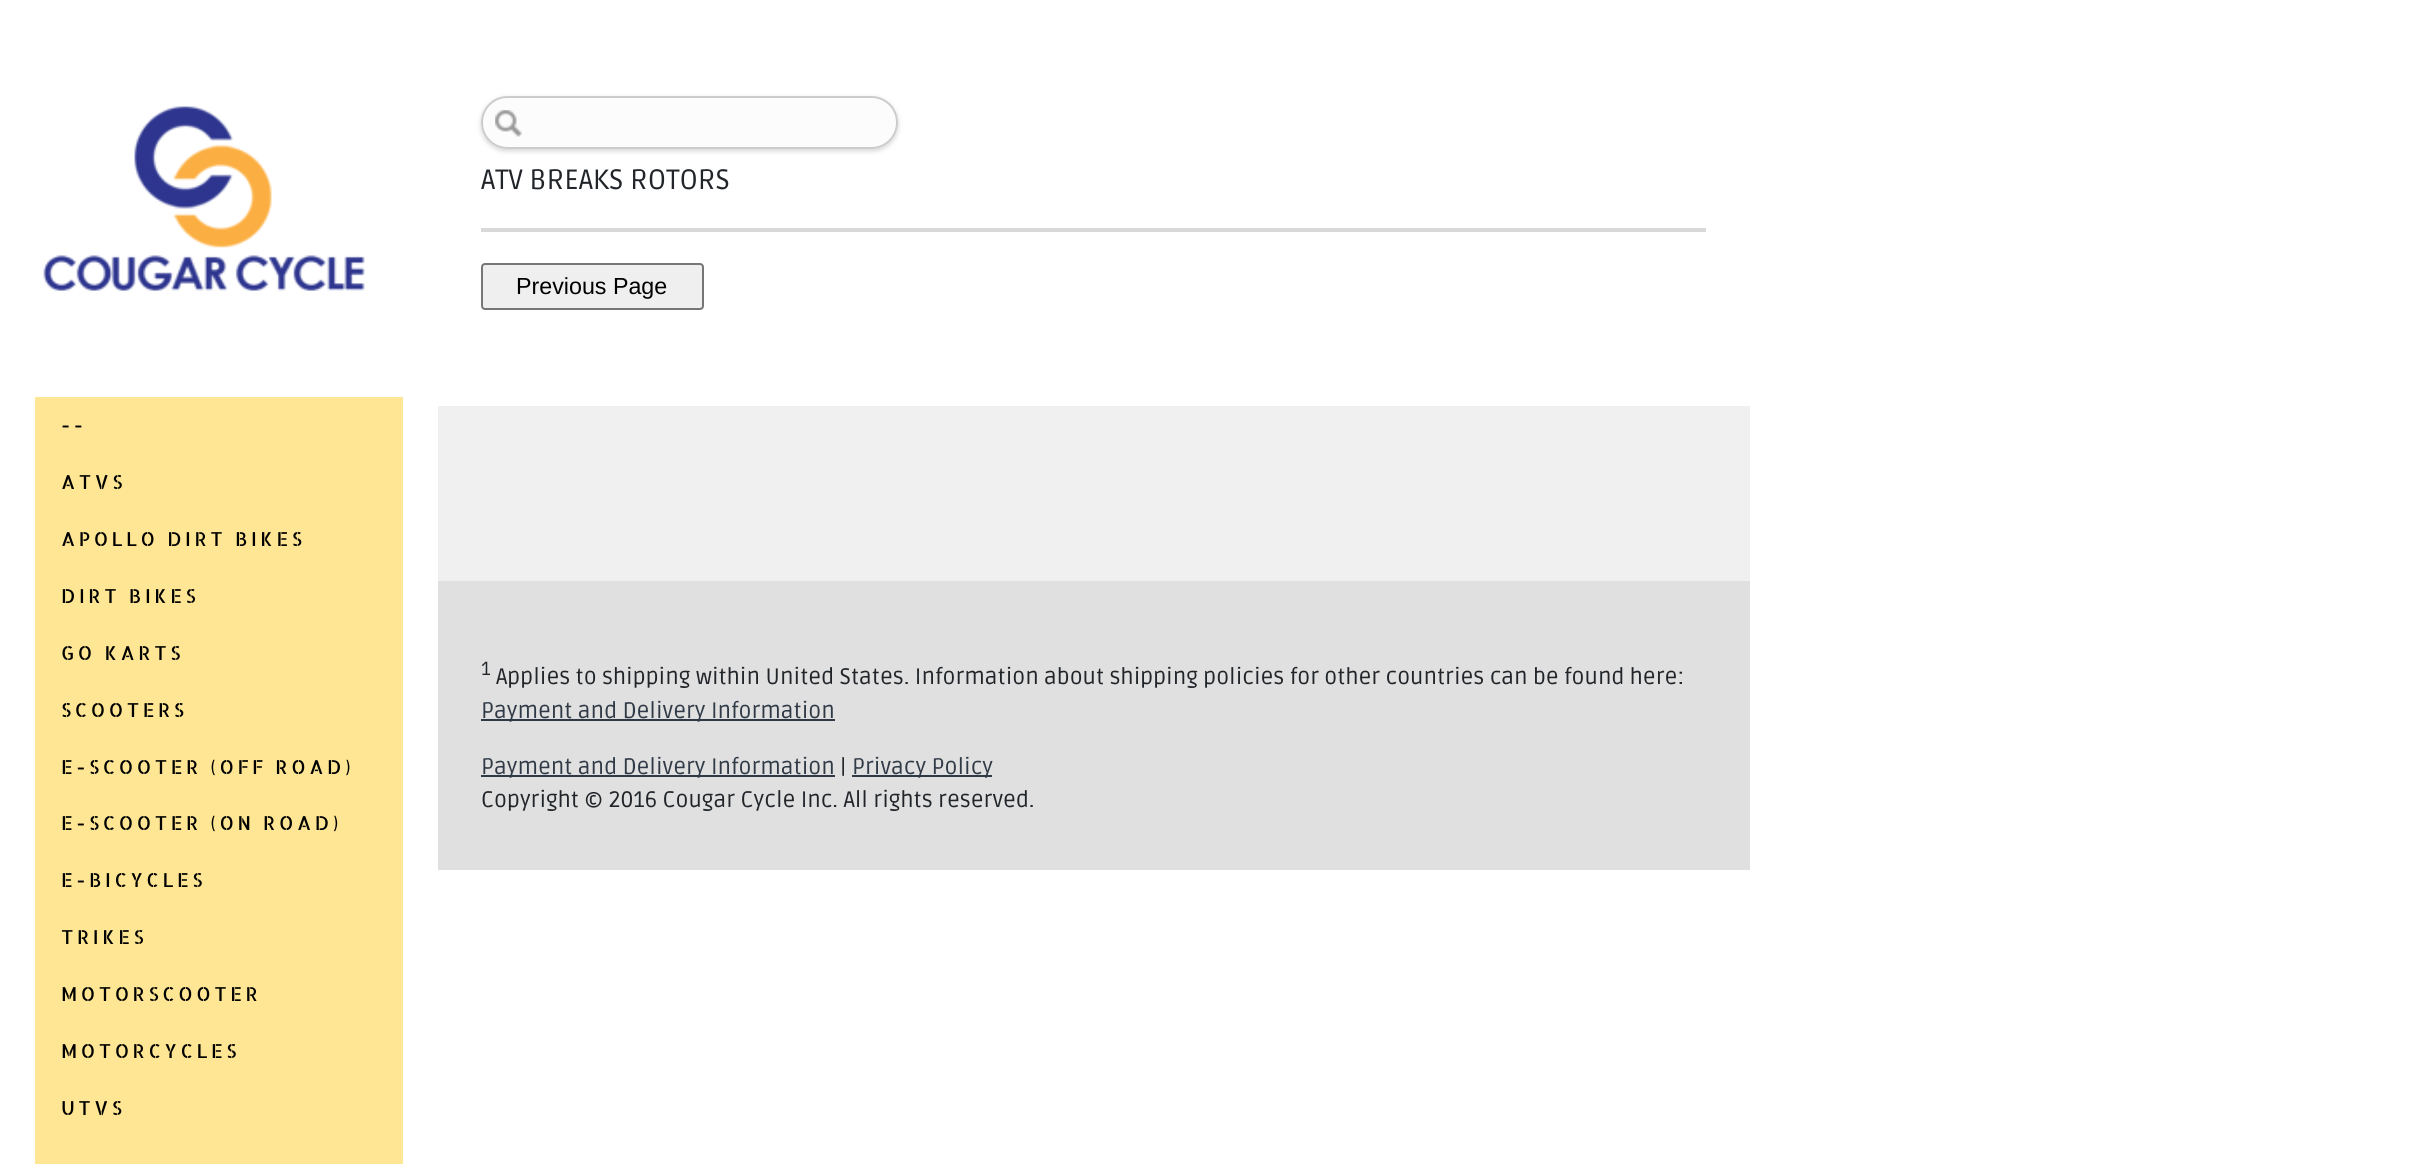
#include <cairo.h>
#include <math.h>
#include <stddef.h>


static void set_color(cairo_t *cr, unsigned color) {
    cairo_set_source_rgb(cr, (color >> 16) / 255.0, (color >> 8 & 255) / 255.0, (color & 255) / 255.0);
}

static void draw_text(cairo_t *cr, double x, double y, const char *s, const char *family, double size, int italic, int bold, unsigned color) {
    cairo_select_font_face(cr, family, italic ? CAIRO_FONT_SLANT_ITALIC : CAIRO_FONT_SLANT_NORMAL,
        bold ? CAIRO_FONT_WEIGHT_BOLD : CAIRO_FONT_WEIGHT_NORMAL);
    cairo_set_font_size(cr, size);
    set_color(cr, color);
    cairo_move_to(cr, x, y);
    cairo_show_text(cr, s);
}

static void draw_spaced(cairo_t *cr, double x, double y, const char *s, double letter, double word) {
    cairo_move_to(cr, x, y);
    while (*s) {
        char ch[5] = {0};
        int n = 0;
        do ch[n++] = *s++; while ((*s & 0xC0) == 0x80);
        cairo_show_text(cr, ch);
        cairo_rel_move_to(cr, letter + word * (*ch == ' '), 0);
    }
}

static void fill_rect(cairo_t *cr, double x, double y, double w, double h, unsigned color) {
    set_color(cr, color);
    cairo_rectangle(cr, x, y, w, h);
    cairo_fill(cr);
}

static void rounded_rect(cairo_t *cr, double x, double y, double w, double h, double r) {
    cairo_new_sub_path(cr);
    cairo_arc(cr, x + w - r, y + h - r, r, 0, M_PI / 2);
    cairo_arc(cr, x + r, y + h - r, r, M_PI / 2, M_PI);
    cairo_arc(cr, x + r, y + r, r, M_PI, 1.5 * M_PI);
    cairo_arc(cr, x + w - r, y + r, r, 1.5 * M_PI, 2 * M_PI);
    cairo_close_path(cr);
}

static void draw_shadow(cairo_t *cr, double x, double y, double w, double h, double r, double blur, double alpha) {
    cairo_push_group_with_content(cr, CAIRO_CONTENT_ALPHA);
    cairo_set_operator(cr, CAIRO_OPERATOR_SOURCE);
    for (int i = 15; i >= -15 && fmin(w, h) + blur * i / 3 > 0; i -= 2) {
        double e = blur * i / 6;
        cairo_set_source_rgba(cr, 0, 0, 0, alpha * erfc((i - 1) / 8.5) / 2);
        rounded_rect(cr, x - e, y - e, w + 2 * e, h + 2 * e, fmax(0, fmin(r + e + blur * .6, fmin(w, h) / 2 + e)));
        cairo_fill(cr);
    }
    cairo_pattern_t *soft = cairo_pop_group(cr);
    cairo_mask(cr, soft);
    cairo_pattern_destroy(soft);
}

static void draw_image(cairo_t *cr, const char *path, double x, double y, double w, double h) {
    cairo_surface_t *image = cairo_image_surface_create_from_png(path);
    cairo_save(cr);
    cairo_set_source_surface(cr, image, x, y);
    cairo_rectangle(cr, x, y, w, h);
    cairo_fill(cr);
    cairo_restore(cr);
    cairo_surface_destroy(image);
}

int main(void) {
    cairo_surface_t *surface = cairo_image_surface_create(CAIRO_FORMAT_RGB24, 2417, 1164);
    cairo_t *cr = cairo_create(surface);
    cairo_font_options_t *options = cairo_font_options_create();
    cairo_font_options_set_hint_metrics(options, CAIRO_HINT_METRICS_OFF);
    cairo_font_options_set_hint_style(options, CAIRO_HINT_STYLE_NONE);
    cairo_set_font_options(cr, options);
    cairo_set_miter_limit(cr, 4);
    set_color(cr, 0xFFFFFF);
    cairo_paint(cr);
    draw_image(cr, "assets/img1.png", 43, 106, 322, 185);
    fill_rect(cr, 35, 397, 368, 767, 0xFFE694);
    cairo_select_font_face(cr, "Allerta Stencil", CAIRO_FONT_SLANT_NORMAL, CAIRO_FONT_WEIGHT_NORMAL);
    cairo_set_font_size(cr, 19.25);
    set_color(cr, 0x000000);
    draw_spaced(cr, 61, 432, "--", 3.5, 0);
    draw_spaced(cr, 61, 489, "ATVS", 3.5, 0);
    draw_spaced(cr, 61, 546, "APOLLO DIRT BIKES", 3.5, 0);
    draw_spaced(cr, 61, 603, "DIRT BIKES", 3.5, 0);
    draw_spaced(cr, 61, 660, "GO KARTS", 3.5, 0);
    draw_spaced(cr, 61, 717, "SCOOTERS", 3.5, 0);
    draw_spaced(cr, 61, 774, "E-SCOOTER (OFF ROAD)", 3.5, 0);
    draw_spaced(cr, 61, 830, "E-SCOOTER (ON ROAD)", 3.5, 0);
    draw_spaced(cr, 61, 887, "E-BICYCLES", 3.5, 0);
    draw_spaced(cr, 61, 944, "TRIKES", 3.5, 0);
    draw_spaced(cr, 61, 1001, "MOTORSCOOTER", 3.5, 0);
    draw_spaced(cr, 61, 1058, "MOTORCYCLES", 3.5, 0);
    draw_spaced(cr, 61, 1115, "UTVS", 3.5, 0);
    set_color(cr, 0x000000);
    draw_shadow(cr, 481, 98, 417, 53, 26.5, 2.5, 0.17);
    set_color(cr, 0xFCFCFC);
    rounded_rect(cr, 481, 96, 417, 53, 26.5);
    cairo_fill(cr);
    draw_image(cr, "assets/img2.png", 495, 110, 27, 27);
    rounded_rect(cr, 482, 97, 415, 51, 25.5);
    set_color(cr, 0xCCCCCC);
    cairo_stroke(cr);
    draw_text(cr, 481, 189, "ATV BREAKS ROTORS", "Ruda", 28, 0, 0, 0x212529);
    fill_rect(cr, 481, 228, 1225, 4, 0xD9D9D9);
    set_color(cr, 0xEFEFEF);
    rounded_rect(cr, 482, 264, 221, 45, 3);
    cairo_fill_preserve(cr);
    set_color(cr, 0x767676);
    cairo_stroke(cr);
    draw_text(cr, 516, 294, "Previous Page", "Liberation Sans", 23.25, 0, 0, 0x000000);
    fill_rect(cr, 438, 406, 1312, 175, 0xF0F0F0);
    fill_rect(cr, 438, 581, 1312, 289, 0xE0E0E0);
    draw_text(cr, 481, 675, "1", "Ruda", 19, 0, 0, 0x212529);
    draw_text(cr, 496, 684, "Applies to shipping within United States. Information about shipping policies for other countries can be found here:", "Ruda", 22.4, 0, 0, 0x212529);
    fill_rect(cr, 481, 719, 354, 2, 0x303A47);
    draw_text(cr, 481, 718, "Payment and Delivery Information", "Ruda", 22.4, 0, 0, 0x303A47);
    fill_rect(cr, 481, 775, 354, 2, 0x303A47);
    draw_text(cr, 481, 774, "Payment and Delivery Information", "Ruda", 22.4, 0, 0, 0x303A47);
    draw_text(cr, 840, 774, "|", "Ruda", 22.4, 0, 0, 0x212529);
    fill_rect(cr, 852, 775, 140, 2, 0x303A47);
    draw_text(cr, 852, 774, "Privacy Policy", "Ruda", 22.4, 0, 0, 0x303A47);
    draw_text(cr, 481, 807, "Copyright © 2016 Cougar Cycle Inc. All rights reserved.", "Ruda", 22.4, 0, 0, 0x212529);
    cairo_surface_write_to_png(surface, "output.png");
    cairo_font_options_destroy(options);
    cairo_destroy(cr);
    cairo_surface_destroy(surface);
    return 0;
}
